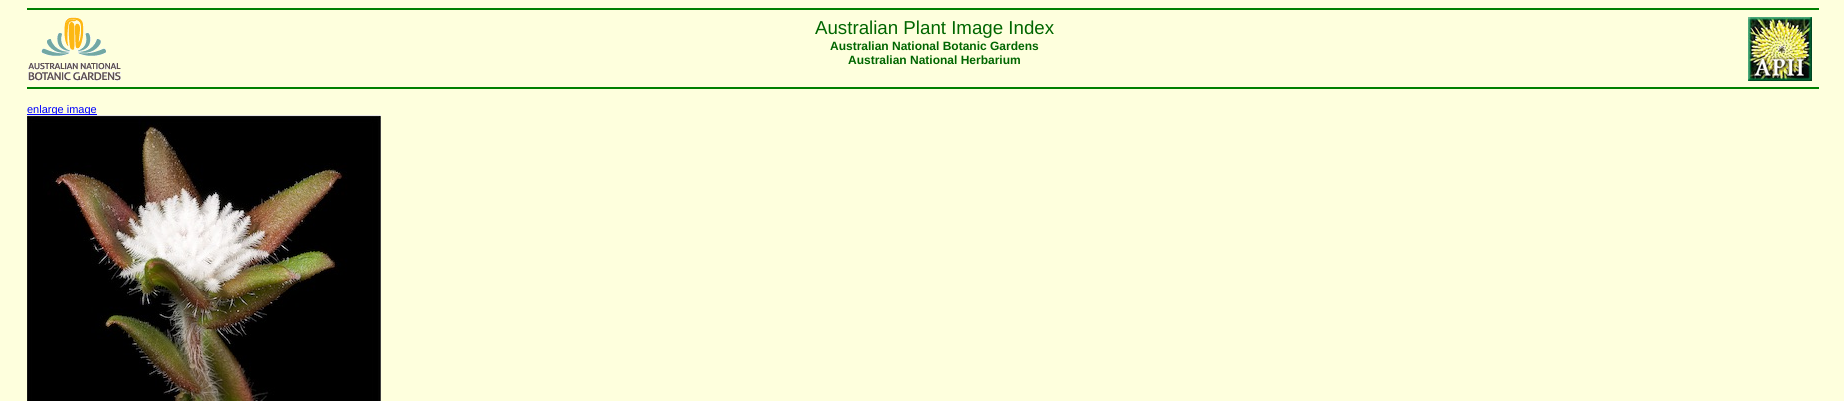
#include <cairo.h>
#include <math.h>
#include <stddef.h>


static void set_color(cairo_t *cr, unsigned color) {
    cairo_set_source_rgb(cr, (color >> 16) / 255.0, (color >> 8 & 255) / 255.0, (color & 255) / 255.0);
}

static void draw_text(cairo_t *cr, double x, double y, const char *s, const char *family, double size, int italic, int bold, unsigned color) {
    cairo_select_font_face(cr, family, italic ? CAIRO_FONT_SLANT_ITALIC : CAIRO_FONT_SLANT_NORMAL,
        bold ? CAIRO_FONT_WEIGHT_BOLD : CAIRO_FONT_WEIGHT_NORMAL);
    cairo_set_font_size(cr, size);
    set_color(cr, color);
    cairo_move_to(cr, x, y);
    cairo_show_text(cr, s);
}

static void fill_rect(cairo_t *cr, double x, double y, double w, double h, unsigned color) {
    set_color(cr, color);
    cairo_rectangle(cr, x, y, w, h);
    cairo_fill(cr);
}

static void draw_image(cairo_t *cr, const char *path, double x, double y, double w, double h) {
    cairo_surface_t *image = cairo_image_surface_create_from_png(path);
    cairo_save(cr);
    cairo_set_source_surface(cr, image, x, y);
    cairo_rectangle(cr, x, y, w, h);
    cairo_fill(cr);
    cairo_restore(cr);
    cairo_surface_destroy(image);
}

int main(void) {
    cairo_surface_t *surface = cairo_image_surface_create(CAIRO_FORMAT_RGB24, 1844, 401);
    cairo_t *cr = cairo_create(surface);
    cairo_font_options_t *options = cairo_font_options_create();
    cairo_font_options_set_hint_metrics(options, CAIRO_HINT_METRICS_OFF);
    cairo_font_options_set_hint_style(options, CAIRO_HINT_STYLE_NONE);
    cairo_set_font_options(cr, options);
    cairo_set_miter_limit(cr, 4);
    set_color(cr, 0xFEFFDD);
    cairo_paint(cr);
    fill_rect(cr, 27, 8, 1792, 2, 0x008000);
    draw_image(cr, "assets/img1.png", 28, 17, 93, 64);
    draw_text(cr, 815, 34, "Australian Plant Image Index", "Liberation Sans", 18.7, 0, 0, 0x006600);
    draw_image(cr, "assets/img2.png", 1748, 17, 64, 64);
    draw_text(cr, 830, 50, "Australian National Botanic Gardens", "Liberation Sans", 12, 0, 1, 0x006600);
    draw_text(cr, 848, 64, "Australian National Herbarium", "Liberation Sans", 12, 0, 1, 0x006600);
    fill_rect(cr, 27, 87, 1792, 2, 0x008000);
    fill_rect(cr, 27, 114, 70, 1, 0x0000FF);
    draw_text(cr, 27, 113, "enlarge image", "Liberation Sans", 11, 0, 0, 0x0000FF);
    draw_image(cr, "assets/img3.png", 27, 115, 354, 286);
    cairo_surface_write_to_png(surface, "output.png");
    cairo_font_options_destroy(options);
    cairo_destroy(cr);
    cairo_surface_destroy(surface);
    return 0;
}
